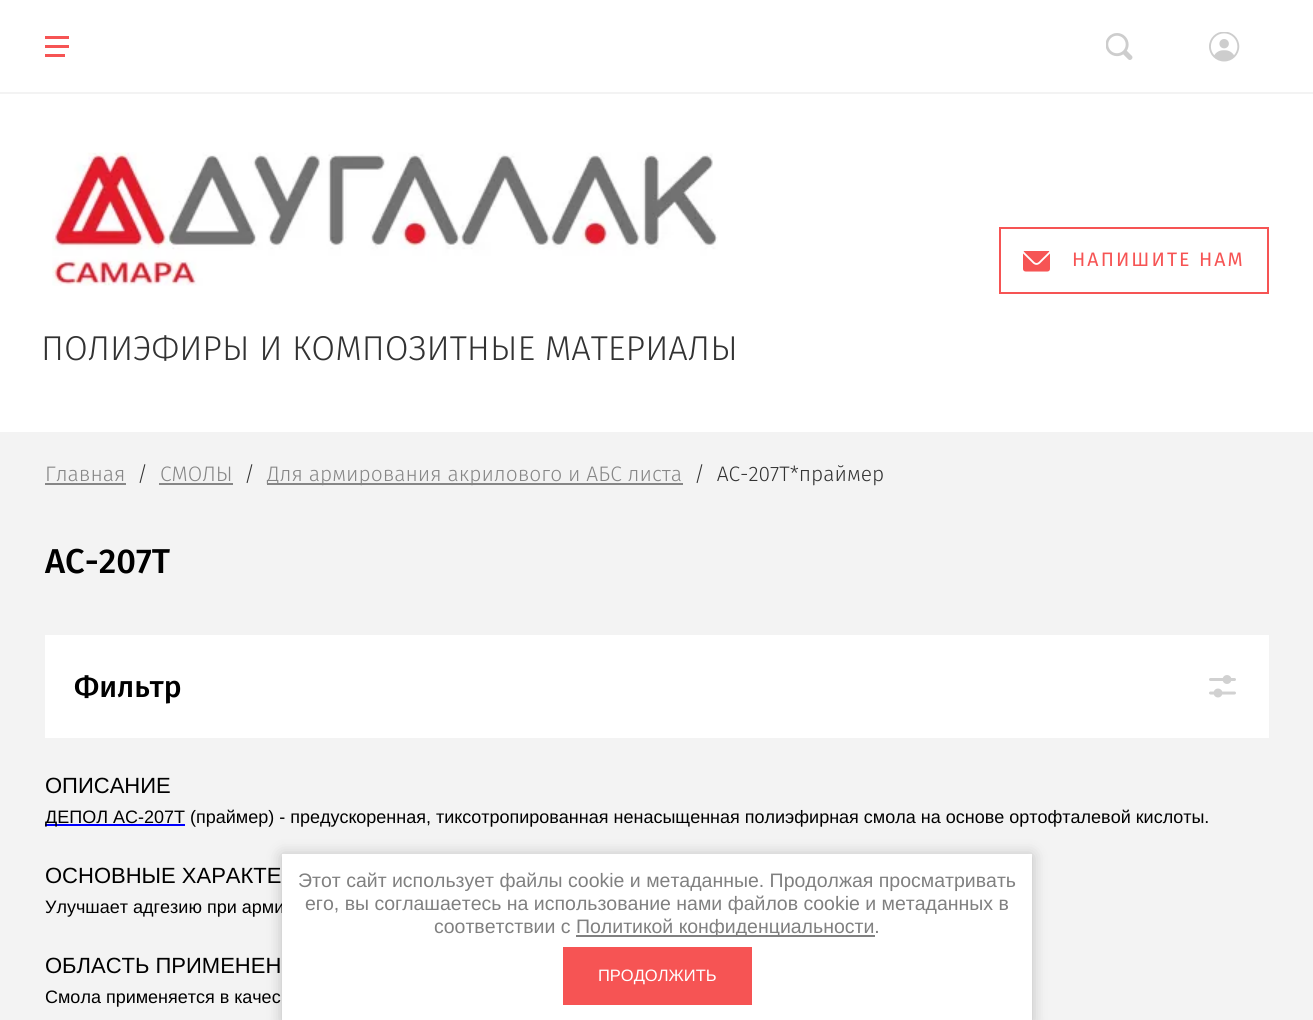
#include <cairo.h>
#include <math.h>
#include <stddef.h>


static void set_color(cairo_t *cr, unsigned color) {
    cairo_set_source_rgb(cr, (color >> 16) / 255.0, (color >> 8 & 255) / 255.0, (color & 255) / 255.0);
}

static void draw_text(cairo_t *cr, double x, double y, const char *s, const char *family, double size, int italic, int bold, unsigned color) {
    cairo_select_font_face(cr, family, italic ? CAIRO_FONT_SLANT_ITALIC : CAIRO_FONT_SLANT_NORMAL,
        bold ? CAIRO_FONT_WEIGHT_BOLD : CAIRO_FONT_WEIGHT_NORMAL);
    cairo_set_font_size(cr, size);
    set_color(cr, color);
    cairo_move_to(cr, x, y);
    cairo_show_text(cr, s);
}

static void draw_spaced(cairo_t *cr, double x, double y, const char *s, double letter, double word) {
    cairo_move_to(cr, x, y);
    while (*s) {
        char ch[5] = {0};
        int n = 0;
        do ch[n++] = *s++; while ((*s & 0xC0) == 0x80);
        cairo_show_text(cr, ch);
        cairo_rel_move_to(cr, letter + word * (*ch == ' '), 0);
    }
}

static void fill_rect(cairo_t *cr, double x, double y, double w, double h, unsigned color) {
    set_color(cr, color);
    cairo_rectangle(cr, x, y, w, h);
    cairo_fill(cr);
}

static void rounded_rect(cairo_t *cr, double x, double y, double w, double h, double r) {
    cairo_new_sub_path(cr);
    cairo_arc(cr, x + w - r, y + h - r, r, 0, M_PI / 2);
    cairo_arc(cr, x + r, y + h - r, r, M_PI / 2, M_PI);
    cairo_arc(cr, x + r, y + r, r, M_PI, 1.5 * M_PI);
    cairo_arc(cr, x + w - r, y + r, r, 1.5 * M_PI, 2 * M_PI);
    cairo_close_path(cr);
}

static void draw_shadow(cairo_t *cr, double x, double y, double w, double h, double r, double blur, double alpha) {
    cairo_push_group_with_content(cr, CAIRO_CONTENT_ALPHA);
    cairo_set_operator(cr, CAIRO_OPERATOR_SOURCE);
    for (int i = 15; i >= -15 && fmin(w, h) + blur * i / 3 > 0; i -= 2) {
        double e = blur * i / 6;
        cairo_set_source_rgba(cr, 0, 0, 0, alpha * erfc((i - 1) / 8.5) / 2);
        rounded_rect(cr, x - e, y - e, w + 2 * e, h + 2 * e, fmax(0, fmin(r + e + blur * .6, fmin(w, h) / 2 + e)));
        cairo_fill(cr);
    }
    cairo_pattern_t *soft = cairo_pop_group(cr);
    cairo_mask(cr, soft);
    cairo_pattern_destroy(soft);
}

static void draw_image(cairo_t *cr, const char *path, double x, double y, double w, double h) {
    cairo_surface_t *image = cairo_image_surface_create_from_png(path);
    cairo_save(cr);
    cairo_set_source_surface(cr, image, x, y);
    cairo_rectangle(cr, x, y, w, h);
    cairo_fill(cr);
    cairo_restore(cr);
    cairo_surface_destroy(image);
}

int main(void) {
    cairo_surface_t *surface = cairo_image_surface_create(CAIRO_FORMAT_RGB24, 1313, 1020);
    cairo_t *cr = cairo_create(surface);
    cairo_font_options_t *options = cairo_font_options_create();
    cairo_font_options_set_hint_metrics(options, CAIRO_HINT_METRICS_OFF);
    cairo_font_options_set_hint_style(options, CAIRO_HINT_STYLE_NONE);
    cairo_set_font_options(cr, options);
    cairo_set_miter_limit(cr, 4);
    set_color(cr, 0xF3F3F3);
    cairo_paint(cr);
    fill_rect(cr, 0, 0, 1313, 432, 0xFFFFFF);
    fill_rect(cr, 45, 36, 24, 3, 0xF65454);
    fill_rect(cr, 45, 45, 24, 3, 0xF65454);
    fill_rect(cr, 45, 54, 20, 3, 0xF65454);
    draw_image(cr, "assets/img1.png", 1106, 33, 27, 27);
    draw_image(cr, "assets/img2.png", 1209, 32, 31, 30);
    fill_rect(cr, 0, 92, 1313, 2, 0xF3F3F3);
    cairo_rectangle(cr, 1000, 228, 268, 65);
    set_color(cr, 0xF65454);
    cairo_stroke(cr);
    draw_image(cr, "assets/img3.png", 1023, 251, 27, 21);
    cairo_select_font_face(cr, "Fira Sans", CAIRO_FONT_SLANT_NORMAL, CAIRO_FONT_WEIGHT_NORMAL);
    cairo_set_font_size(cr, 19.5);
    draw_spaced(cr, 1072, 266, "НАПИШИТЕ НАМ", 2.1, 0);
    draw_image(cr, "assets/img4.png", 52, 152, 666, 134);
    draw_text(cr, 41, 360, "ПОЛИЭФИРЫ И КОМПОЗИТНЫЕ МАТЕРИАЛЫ", "Fira Sans Light", 34.5, 0, 0, 0x323232);
    draw_text(cr, 45, 481, "Главная", "Fira Sans Light", 21, 0, 0, 0x868686);
    fill_rect(cr, 45, 483, 81, 2, 0x868686);
    draw_text(cr, 137, 481, "/", "Fira Sans Light", 21, 0, 0, 0x323232);
    draw_text(cr, 160, 481, "СМОЛЫ", "Fira Sans Light", 21, 0, 0, 0x868686);
    fill_rect(cr, 159, 483, 74, 2, 0x868686);
    draw_text(cr, 244, 481, "/", "Fira Sans Light", 21, 0, 0, 0x323232);
    fill_rect(cr, 267, 483, 416, 2, 0x868686);
    draw_text(cr, 267, 481, "Для армирования акрилового и АБС листа", "Fira Sans Light", 21, 0, 0, 0x868686);
    draw_text(cr, 694, 481, "/  АС-207Т*праймер", "Fira Sans Light", 21, 0, 0, 0x323232);
    draw_text(cr, 45, 573, "АС-207Т", "Fira Sans Medium", 34.5, 0, 0, 0x000000);
    fill_rect(cr, 45, 635, 1224, 103, 0xFFFFFF);
    draw_image(cr, "assets/img5.png", 1209, 675, 27, 23);
    draw_text(cr, 74, 697, "Фильтр", "Fira Sans Medium", 30, 0, 0, 0x000000);
    draw_text(cr, 45, 793, "ОПИСАНИЕ", "Liberation Sans", 22, 0, 0, 0x000000);
    fill_rect(cr, 45, 824, 140, 2, 0x0000FF);
    draw_text(cr, 45, 823, "ДЕПОЛ АС-207Т (праймер) - предускоренная, тиксотропированная ненасыщенная полиэфирная смола на основе ортофталевой кислоты.", "Liberation Sans", 18, 0, 0, 0x000000);
    draw_text(cr, 45, 883, "ОСНОВНЫЕ ХАРАКТЕ", "Liberation Sans", 22, 0, 0, 0x000000);
    draw_text(cr, 45, 913, "Улучшает адгезию при арми", "Liberation Sans", 18, 0, 0, 0x000000);
    draw_text(cr, 45, 973, "ОБЛАСТЬ ПРИМЕНЕН", "Liberation Sans", 22, 0, 0, 0x000000);
    draw_text(cr, 45, 1003, "Смола применяется в качес", "Liberation Sans", 18, 0, 0, 0x000000);
    set_color(cr, 0x000000);
    draw_shadow(cr, 282, 855, 750, 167, 0, 7.5, 0.23);
    fill_rect(cr, 282, 854, 750, 166, 0xFFFFFF);
    draw_text(cr, 298, 887, "Этот сайт использует файлы cookie и метаданные. Продолжая просматривать", "Liberation Sans", 19.5, 0, 0, 0x808080);
    draw_text(cr, 305, 910, "его, вы соглашаетесь на использование нами файлов cookie и метаданных в", "Liberation Sans", 19.5, 0, 0, 0x808080);
    draw_text(cr, 434, 933, "соответствии с", "Liberation Sans", 19.5, 0, 0, 0x808080);
    fill_rect(cr, 576, 935, 299, 2, 0x808080);
    draw_text(cr, 576, 933, "Политикой конфиденциальности.", "Liberation Sans", 19.5, 0, 0, 0x808080);
    fill_rect(cr, 563, 947, 189, 58, 0xF65454);
    draw_text(cr, 598, 981, "ПРОДОЛЖИТЬ", "Liberation Sans", 16.5, 0, 0, 0xFFFFFF);
    cairo_surface_write_to_png(surface, "output.png");
    cairo_font_options_destroy(options);
    cairo_destroy(cr);
    cairo_surface_destroy(surface);
    return 0;
}
